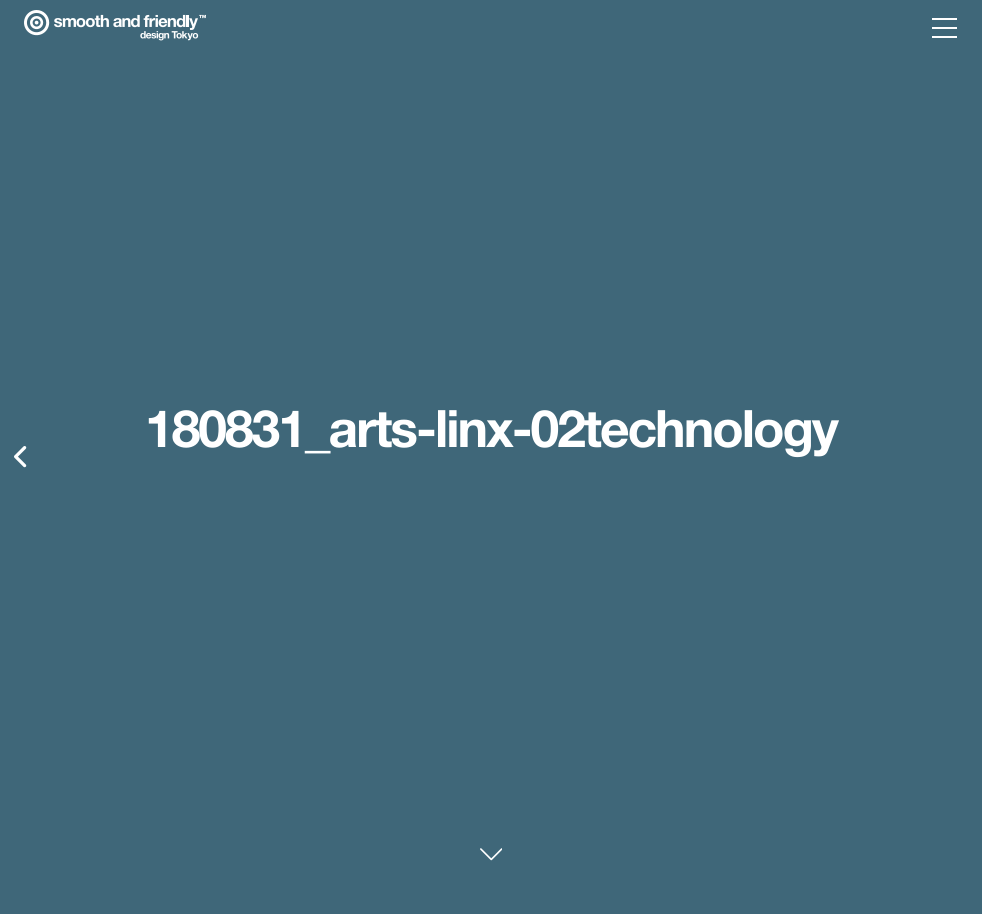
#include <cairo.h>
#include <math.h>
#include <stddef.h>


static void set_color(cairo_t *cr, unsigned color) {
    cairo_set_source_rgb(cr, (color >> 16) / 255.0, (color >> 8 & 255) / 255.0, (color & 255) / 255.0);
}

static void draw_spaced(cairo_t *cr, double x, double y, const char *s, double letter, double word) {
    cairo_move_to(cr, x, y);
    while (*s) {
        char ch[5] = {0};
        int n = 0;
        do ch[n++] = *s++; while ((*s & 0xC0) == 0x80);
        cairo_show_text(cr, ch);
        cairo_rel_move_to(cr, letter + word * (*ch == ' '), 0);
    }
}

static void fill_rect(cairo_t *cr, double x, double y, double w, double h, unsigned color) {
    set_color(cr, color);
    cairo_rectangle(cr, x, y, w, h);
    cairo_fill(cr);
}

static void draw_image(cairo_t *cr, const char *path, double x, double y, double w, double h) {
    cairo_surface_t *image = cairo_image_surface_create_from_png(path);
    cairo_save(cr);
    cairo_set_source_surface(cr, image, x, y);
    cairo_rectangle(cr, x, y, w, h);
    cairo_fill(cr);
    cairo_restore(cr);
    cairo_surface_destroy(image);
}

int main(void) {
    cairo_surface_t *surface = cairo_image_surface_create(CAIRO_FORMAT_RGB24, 982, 914);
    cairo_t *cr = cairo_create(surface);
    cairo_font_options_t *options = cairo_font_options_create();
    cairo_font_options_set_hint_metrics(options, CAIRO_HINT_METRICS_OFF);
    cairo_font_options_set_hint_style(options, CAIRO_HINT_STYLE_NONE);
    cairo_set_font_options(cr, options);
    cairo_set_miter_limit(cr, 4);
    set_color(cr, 0x3F6779);
    cairo_paint(cr);
    draw_image(cr, "assets/img1.png", 24, 10, 182, 31);
    fill_rect(cr, 932, 27, 25, 2, 0xFFFFFF);
    fill_rect(cr, 932, 18, 25, 2, 0xFFFFFF);
    fill_rect(cr, 932, 36, 25, 2, 0xFFFFFF);
    draw_image(cr, "assets/img2.png", 14, 446, 13, 22);
    cairo_select_font_face(cr, "Helvetica Neue", CAIRO_FONT_SLANT_NORMAL, CAIRO_FONT_WEIGHT_BOLD);
    cairo_set_font_size(cr, 51.6);
    draw_spaced(cr, 145, 447, "180831_arts-linx-02technology", -2.05, 0);
    draw_image(cr, "assets/img3.png", 480, 848, 22, 13);
    cairo_surface_write_to_png(surface, "output.png");
    cairo_font_options_destroy(options);
    cairo_destroy(cr);
    cairo_surface_destroy(surface);
    return 0;
}
